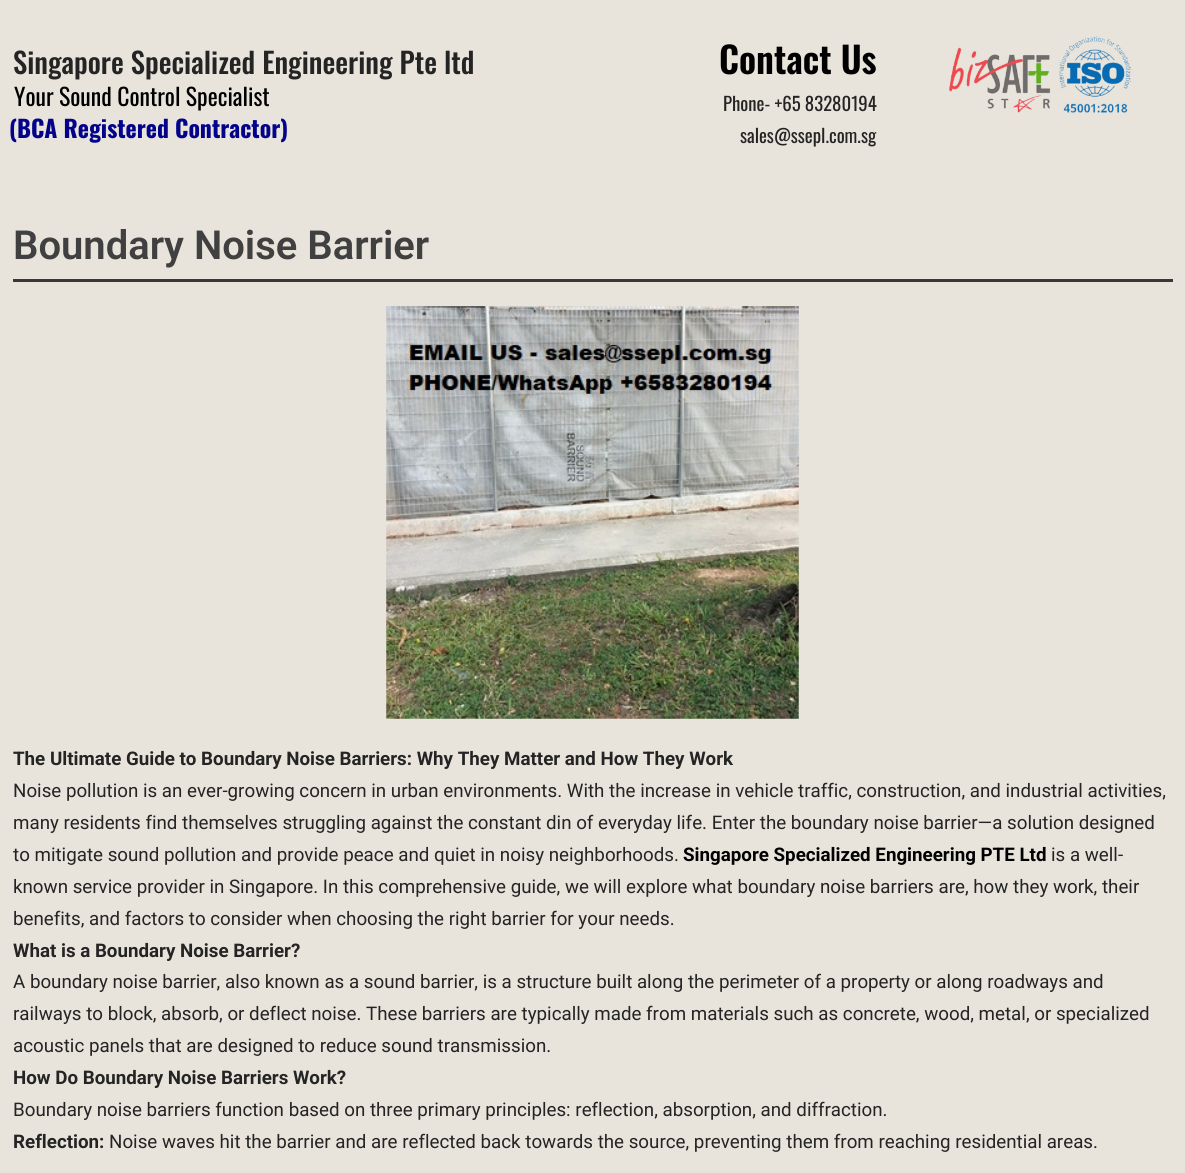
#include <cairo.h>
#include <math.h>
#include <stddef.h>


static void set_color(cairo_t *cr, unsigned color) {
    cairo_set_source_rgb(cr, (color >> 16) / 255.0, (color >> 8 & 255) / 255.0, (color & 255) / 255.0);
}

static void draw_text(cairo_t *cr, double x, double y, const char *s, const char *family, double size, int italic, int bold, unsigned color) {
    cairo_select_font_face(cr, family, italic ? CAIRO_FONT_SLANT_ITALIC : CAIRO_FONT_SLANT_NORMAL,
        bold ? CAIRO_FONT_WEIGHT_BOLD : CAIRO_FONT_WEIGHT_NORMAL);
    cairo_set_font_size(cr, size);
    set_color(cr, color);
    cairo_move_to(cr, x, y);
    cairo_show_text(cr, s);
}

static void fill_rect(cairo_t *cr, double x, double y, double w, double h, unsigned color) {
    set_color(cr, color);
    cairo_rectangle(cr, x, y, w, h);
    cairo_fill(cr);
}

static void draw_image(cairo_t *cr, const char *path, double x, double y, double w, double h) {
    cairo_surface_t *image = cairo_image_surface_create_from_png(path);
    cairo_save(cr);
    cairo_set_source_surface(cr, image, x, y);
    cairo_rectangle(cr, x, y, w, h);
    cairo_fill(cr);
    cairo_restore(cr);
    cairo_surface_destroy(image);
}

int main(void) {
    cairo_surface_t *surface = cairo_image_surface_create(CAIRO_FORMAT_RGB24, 1185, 1173);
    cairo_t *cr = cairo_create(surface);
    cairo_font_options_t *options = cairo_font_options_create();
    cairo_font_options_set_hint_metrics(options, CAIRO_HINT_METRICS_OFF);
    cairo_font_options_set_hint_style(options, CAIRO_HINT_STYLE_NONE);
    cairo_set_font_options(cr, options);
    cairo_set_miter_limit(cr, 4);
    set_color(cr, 0xE8E4DC);
    cairo_paint(cr);
    draw_text(cr, 13, 74, "Singapore Specialized Engineering Pte ltd", "Oswald Medium", 28.75, 0, 0, 0x242424);
    draw_text(cr, 14, 106, "Your Sound Control Specialist", "Oswald", 23.75, 0, 0, 0x000000);
    draw_text(cr, 9, 138, "(BCA Registered Contractor)", "Oswald", 23.75, 0, 1, 0x03028B);
    draw_text(cr, 719, 74, "Contact Us", "Oswald SemiBold", 36.25, 0, 0, 0x000000);
    draw_text(cr, 723, 111, "Phone- +65 83280194", "Oswald", 18.75, 0, 0, 0x242424);
    draw_text(cr, 740, 143, "sales@ssepl.com.sg", "Oswald", 18.75, 0, 0, 0x242424);
    draw_image(cr, "assets/img1.png", 949, 36, 183, 77);
    fill_rect(cr, 13, 279, 1160, 3, 0x383838);
    draw_text(cr, 13, 259, "Boundary Noise Barrier", "Roboto SemiBold", 40, 0, 0, 0x404040);
    draw_image(cr, "assets/img2.png", 386, 306, 413, 413);
    draw_text(cr, 13, 765, "The Ultimate Guide to Boundary Noise Barriers: Why They Matter and How They Work", "Roboto", 18.75, 0, 1, 0x242424);
    draw_text(cr, 13, 797, "Noise pollution is an ever-growing concern in urban environments. With the increase in vehicle traffic, construction, and industrial activities,", "Roboto", 18.75, 0, 0, 0x242424);
    draw_text(cr, 13, 829, "many residents find themselves struggling against the constant din of everyday life. Enter the boundary noise barrier—a solution designed", "Roboto", 18.75, 0, 0, 0x242424);
    draw_text(cr, 13, 861, "to mitigate sound pollution and provide peace and quiet in noisy neighborhoods.", "Roboto", 18.75, 0, 0, 0x242424);
    draw_text(cr, 683, 861, "Singapore Specialized Engineering PTE Ltd", "Roboto", 18.75, 0, 1, 0x000000);
    draw_text(cr, 1051, 861, "is a well-", "Roboto", 18.75, 0, 0, 0x242424);
    draw_text(cr, 13, 893, "known service provider in Singapore. In this comprehensive guide, we will explore what boundary noise barriers are, how they work, their", "Roboto", 18.75, 0, 0, 0x242424);
    draw_text(cr, 13, 925, "benefits, and factors to consider when choosing the right barrier for your needs.", "Roboto", 18.75, 0, 0, 0x242424);
    draw_text(cr, 13, 957, "What is a Boundary Noise Barrier?", "Roboto", 18.75, 0, 1, 0x242424);
    draw_text(cr, 13, 988, "A boundary noise barrier, also known as a sound barrier, is a structure built along the perimeter of a property or along roadways and", "Roboto", 18.75, 0, 0, 0x242424);
    draw_text(cr, 13, 1020, "railways to block, absorb, or deflect noise. These barriers are typically made from materials such as concrete, wood, metal, or specialized", "Roboto", 18.75, 0, 0, 0x242424);
    draw_text(cr, 13, 1052, "acoustic panels that are designed to reduce sound transmission.", "Roboto", 18.75, 0, 0, 0x242424);
    draw_text(cr, 13, 1084, "How Do Boundary Noise Barriers Work?", "Roboto", 18.75, 0, 1, 0x242424);
    draw_text(cr, 13, 1116, "Boundary noise barriers function based on three primary principles: reflection, absorption, and diffraction.", "Roboto", 18.75, 0, 0, 0x242424);
    draw_text(cr, 13, 1148, "Reflection:", "Roboto", 18.75, 0, 1, 0x242424);
    draw_text(cr, 109, 1148, "Noise waves hit the barrier and are reflected back towards the source, preventing them from reaching residential areas.", "Roboto", 18.75, 0, 0, 0x242424);
    cairo_surface_write_to_png(surface, "output.png");
    cairo_font_options_destroy(options);
    cairo_destroy(cr);
    cairo_surface_destroy(surface);
    return 0;
}
